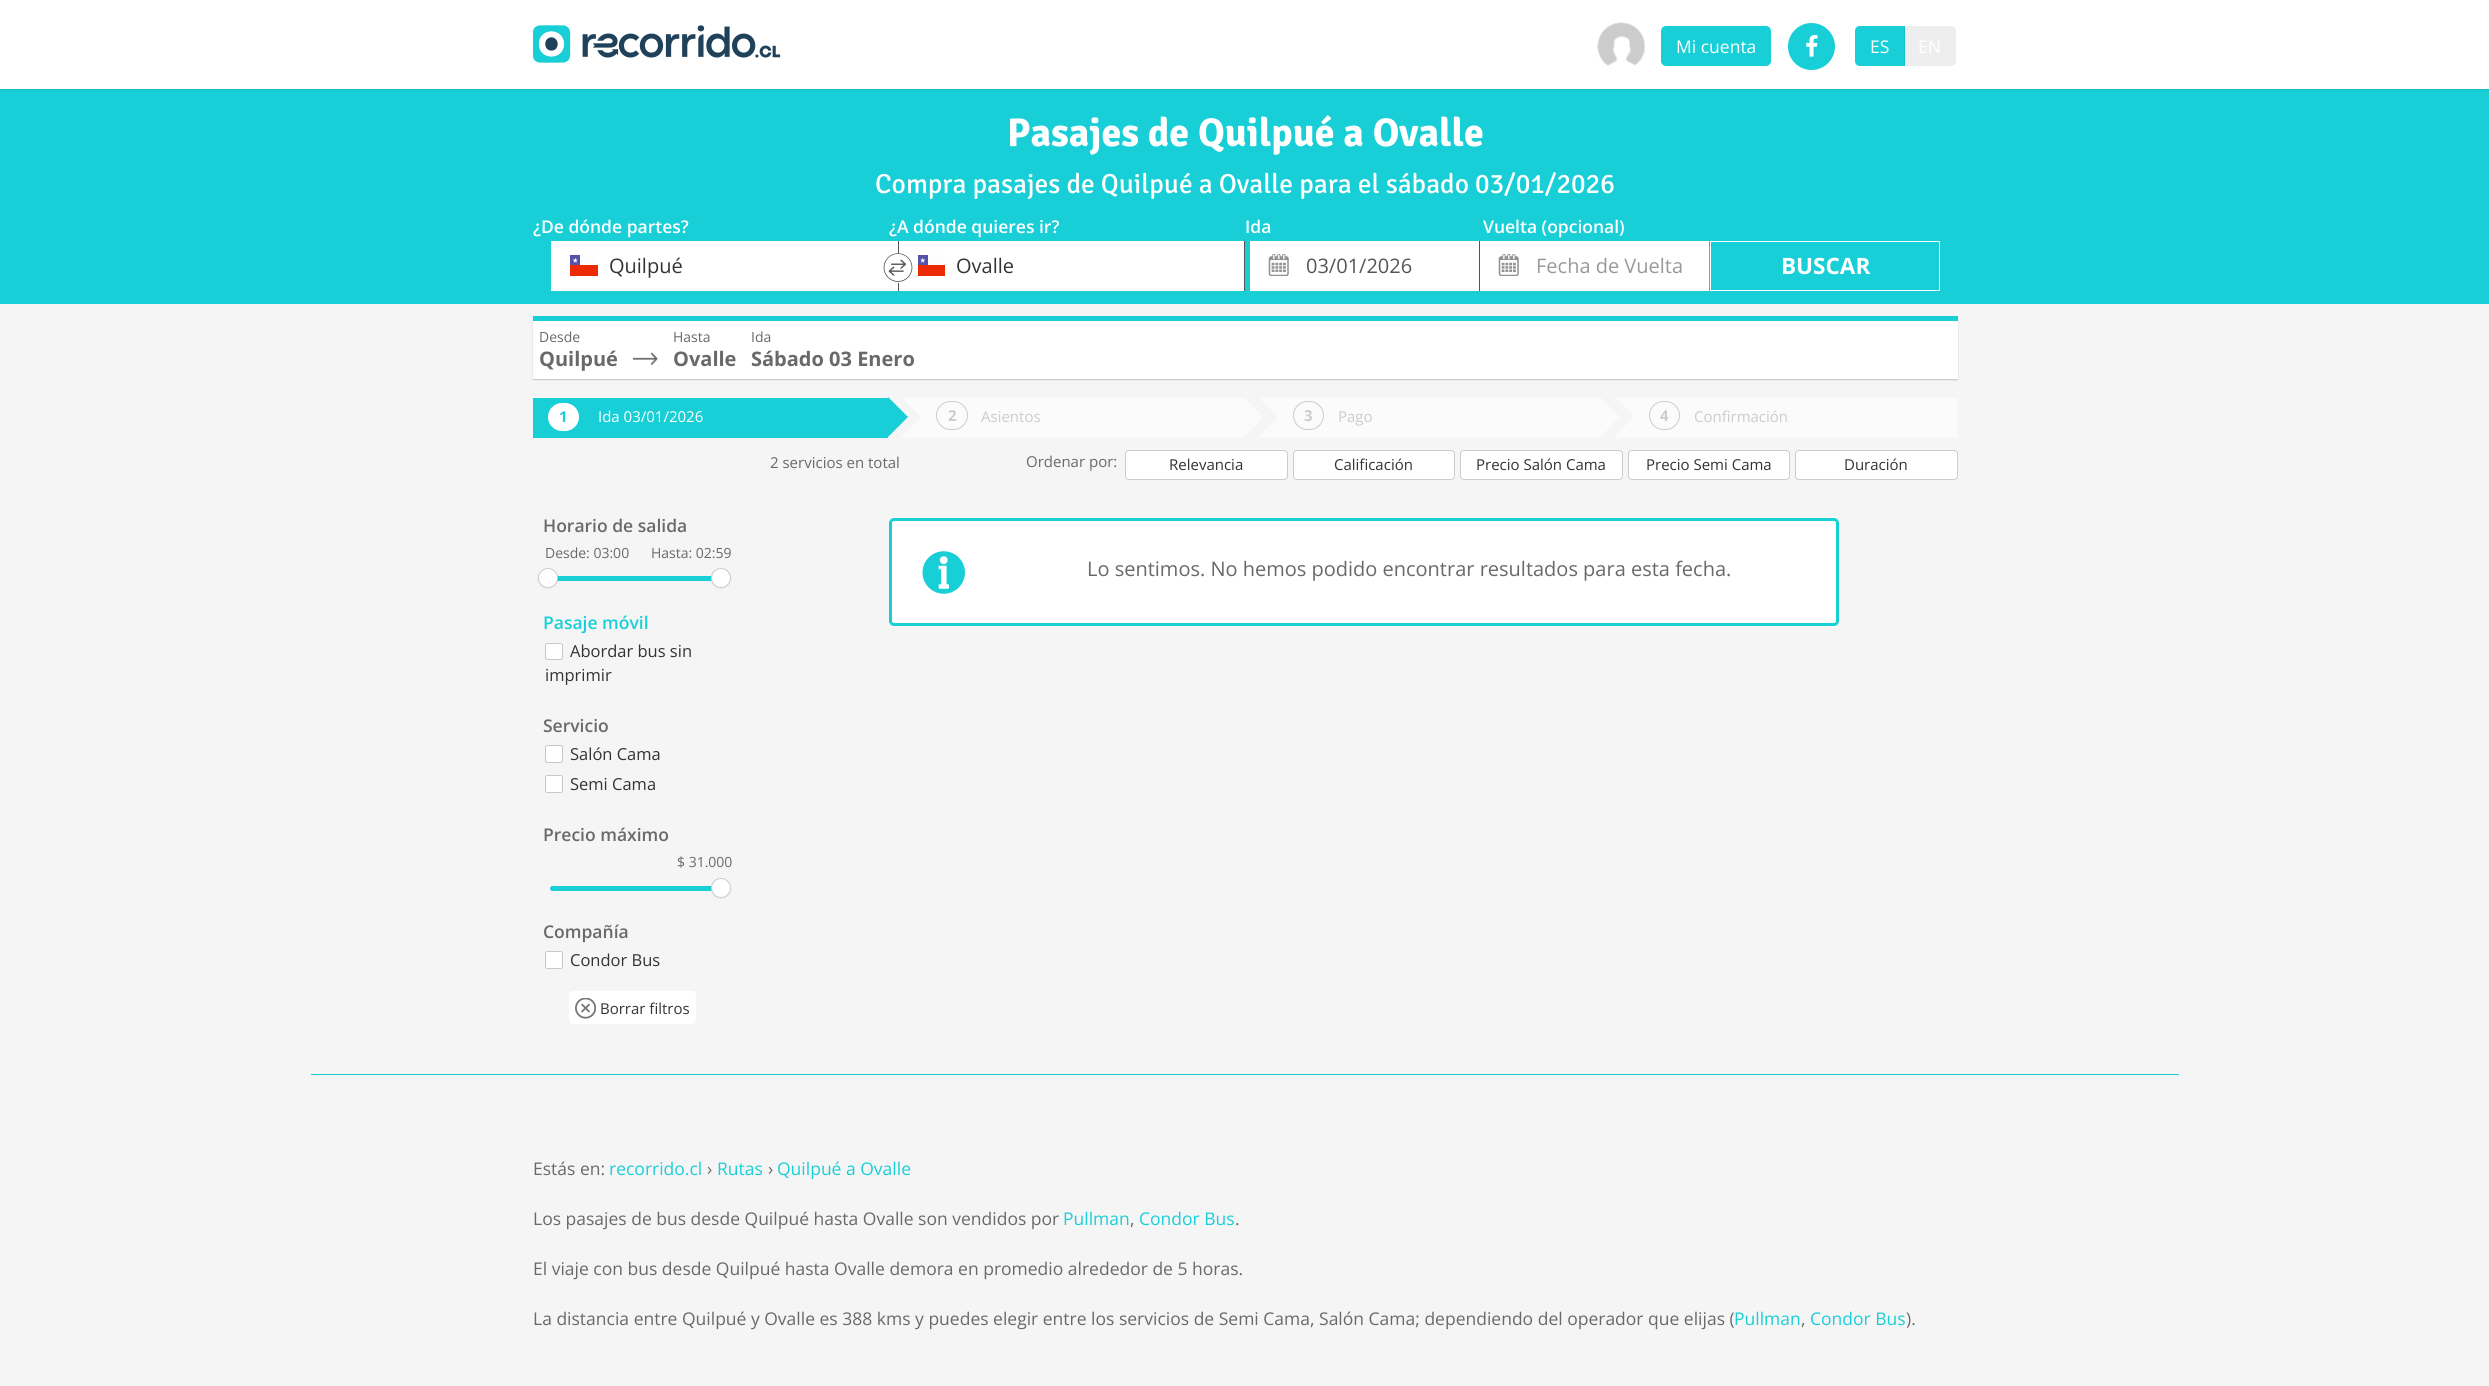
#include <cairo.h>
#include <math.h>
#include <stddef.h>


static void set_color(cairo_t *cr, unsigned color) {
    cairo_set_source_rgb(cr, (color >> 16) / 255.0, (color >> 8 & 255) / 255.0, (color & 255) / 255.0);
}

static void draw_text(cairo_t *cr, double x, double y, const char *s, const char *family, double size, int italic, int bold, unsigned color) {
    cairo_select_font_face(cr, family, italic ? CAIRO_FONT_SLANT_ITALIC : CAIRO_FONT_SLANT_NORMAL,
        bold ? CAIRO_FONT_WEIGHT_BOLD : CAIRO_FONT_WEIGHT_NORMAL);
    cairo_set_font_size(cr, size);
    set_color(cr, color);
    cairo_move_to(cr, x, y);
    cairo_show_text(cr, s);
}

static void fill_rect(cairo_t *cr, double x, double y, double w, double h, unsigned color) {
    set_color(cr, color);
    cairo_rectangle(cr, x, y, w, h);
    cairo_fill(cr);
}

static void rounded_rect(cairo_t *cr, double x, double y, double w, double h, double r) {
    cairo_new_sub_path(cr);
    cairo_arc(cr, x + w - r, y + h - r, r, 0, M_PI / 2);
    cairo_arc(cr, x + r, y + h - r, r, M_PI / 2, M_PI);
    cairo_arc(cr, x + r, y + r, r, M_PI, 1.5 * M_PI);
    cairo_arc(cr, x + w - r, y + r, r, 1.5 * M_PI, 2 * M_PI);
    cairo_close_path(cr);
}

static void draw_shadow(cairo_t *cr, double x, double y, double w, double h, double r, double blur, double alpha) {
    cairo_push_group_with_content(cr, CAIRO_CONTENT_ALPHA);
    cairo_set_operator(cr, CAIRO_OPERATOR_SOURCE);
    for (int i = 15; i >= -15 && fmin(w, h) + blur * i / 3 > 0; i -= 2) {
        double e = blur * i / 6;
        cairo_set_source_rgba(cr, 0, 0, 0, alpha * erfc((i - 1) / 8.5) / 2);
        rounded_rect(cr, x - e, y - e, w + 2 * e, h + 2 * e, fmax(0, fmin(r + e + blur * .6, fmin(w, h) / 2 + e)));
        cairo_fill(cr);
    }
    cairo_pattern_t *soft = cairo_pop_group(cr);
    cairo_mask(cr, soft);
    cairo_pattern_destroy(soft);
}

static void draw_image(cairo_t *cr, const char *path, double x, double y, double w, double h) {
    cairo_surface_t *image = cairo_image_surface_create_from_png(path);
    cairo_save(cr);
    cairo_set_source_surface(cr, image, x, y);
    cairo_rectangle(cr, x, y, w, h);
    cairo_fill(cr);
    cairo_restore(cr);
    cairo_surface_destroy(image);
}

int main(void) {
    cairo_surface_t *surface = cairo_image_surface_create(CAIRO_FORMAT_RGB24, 2489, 1386);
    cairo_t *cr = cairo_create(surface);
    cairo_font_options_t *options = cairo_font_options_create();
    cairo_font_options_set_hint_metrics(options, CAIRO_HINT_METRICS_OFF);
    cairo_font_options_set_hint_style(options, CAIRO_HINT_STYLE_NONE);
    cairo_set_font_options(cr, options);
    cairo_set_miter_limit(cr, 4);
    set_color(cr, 0xF5F5F5);
    cairo_paint(cr);
    fill_rect(cr, 0, 89, 2489, 215, 0x18CFD7);
    set_color(cr, 0x000000);
    draw_shadow(cr, 1, 1, 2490, 89, 0, 0.5, 0.1);
    fill_rect(cr, 0, 0, 2489, 89, 0xFFFFFF);
    draw_image(cr, "assets/img1.png", 533, 25, 248, 38);
    draw_image(cr, "assets/img2.png", 1597, 22, 48, 44);
    set_color(cr, 0x18CFD7);
    rounded_rect(cr, 1661, 26, 110, 40, 5);
    cairo_fill(cr);
    draw_text(cr, 1676, 53, "Mi cuenta", "Open Sans", 17.5, 0, 0, 0xFFFFFF);
    set_color(cr, 0x18CFD7);
    cairo_new_path(cr);
    cairo_arc(cr, 1811.5, 46.5, 23.5, 0, 2 * M_PI);
    cairo_fill(cr);
    draw_image(cr, "assets/img3.png", 1806, 35, 12, 22);
    cairo_new_path(cr);
    cairo_move_to(cr, 1860, 26);
    cairo_line_to(cr, 1905, 26);
    cairo_line_to(cr, 1905, 66);
    cairo_line_to(cr, 1860, 66);
    cairo_curve_to(cr, 1857, 66, 1855, 64, 1855, 61);
    cairo_line_to(cr, 1855, 31);
    cairo_curve_to(cr, 1855, 28, 1857, 26, 1860, 26);
    cairo_close_path(cr);
    cairo_fill(cr);
    draw_text(cr, 1870, 53, "ES", "Open Sans", 17.5, 0, 0, 0xFFFFFF);
    cairo_set_source_rgba(cr, 0, 0, 0, 0.07);
    cairo_new_path(cr);
    cairo_move_to(cr, 1904, 26);
    cairo_line_to(cr, 1951, 26);
    cairo_curve_to(cr, 1954, 26, 1956, 28, 1956, 31);
    cairo_line_to(cr, 1956, 61);
    cairo_curve_to(cr, 1956, 64, 1954, 66, 1951, 66);
    cairo_line_to(cr, 1904, 66);
    cairo_close_path(cr);
    cairo_fill(cr);
    draw_text(cr, 1918, 53, "EN", "Open Sans", 17.5, 0, 0, 0xFFFFFF);
    draw_text(cr, 1007, 146, "Pasajes de Quilpué a Ovalle", "Signika", 40, 0, 1, 0xFFFFFF);
    draw_text(cr, 875, 193, "Compra pasajes de Quilpué a Ovalle para el sábado 03/01/2026", "Signika", 27.5, 0, 0, 0xFFFFFF);
    draw_text(cr, 533, 233, "¿De dónde partes?", "Open Sans SemiBold", 17.5, 0, 0, 0xFFFFFF);
    draw_text(cr, 889, 233, "¿A dónde quieres ir?", "Open Sans SemiBold", 17.5, 0, 0, 0xFFFFFF);
    draw_text(cr, 1245, 233, "Ida", "Open Sans SemiBold", 17.5, 0, 0, 0xFFFFFF);
    draw_text(cr, 1483, 233, "Vuelta (opcional)", "Open Sans SemiBold", 17.5, 0, 0, 0xFFFFFF);
    fill_rect(cr, 898, 241, 1, 50, 0x555555);
    fill_rect(cr, 551, 241, 347, 50, 0xFFFFFF);
    draw_image(cr, "assets/img4.png", 570, 255, 28, 21);
    draw_text(cr, 609, 273, "Quilpué", "Open Sans", 20, 0, 0, 0x333333);
    fill_rect(cr, 899, 241, 345, 50, 0xFFFFFF);
    cairo_new_path(cr);
    cairo_arc(cr, 898, 268, 15, 0, 2 * M_PI);
    cairo_fill(cr);
    draw_image(cr, "assets/img5.png", 883, 253, 30, 29);
    fill_rect(cr, 1244, 241, 1, 50, 0x555555);
    draw_image(cr, "assets/img6.png", 918, 255, 27, 21);
    draw_text(cr, 956, 273, "Ovalle", "Open Sans", 20, 0, 0, 0x333333);
    fill_rect(cr, 1479, 241, 1, 50, 0x555555);
    fill_rect(cr, 1250, 241, 229, 50, 0xFFFFFF);
    draw_image(cr, "assets/img7.png", 1268, 254, 21, 22);
    draw_text(cr, 1306, 273, "03/01/2026", "Open Sans", 20, 0, 0, 0x555555);
    fill_rect(cr, 1480, 241, 229, 50, 0xFFFFFF);
    draw_image(cr, "assets/img7.png", 1498, 254, 21, 22);
    draw_text(cr, 1536, 273, "Fecha de Vuelta", "Open Sans", 20, 0, 0, 0x999999);
    cairo_rectangle(cr, 1710.5, 241.5, 229, 49);
    set_color(cr, 0xFFFFFF);
    cairo_set_line_width(cr, 1);
    cairo_stroke(cr);
    draw_text(cr, 1781, 274, "BUSCAR", "Open Sans", 22.5, 0, 1, 0xFFFFFF);
    set_color(cr, 0x000000);
    draw_shadow(cr, 533, 318, 1425, 62, 0, 0.5, 0.2);
    fill_rect(cr, 533, 321, 1425, 58, 0xFFFFFF);
    fill_rect(cr, 533, 316, 1425, 5, 0x18CFD7);
    draw_text(cr, 539, 342, "Desde", "Open Sans", 14, 0, 0, 0x696969);
    draw_text(cr, 539, 366, "Quilpué", "Open Sans", 20, 0, 1, 0x696969);
    draw_image(cr, "assets/img8.png", 633, 352, 25, 13);
    draw_text(cr, 673, 342, "Hasta", "Open Sans", 14, 0, 0, 0x696969);
    draw_text(cr, 673, 366, "Ovalle", "Open Sans", 20, 0, 1, 0x696969);
    draw_text(cr, 751, 342, "Ida", "Open Sans", 14, 0, 0, 0x696969);
    draw_text(cr, 751, 366, "Sábado 03 Enero", "Open Sans", 20, 0, 1, 0x696969);
    fill_rect(cr, 533, 398, 355, 40, 0x18CFD7);
    set_color(cr, 0xFFFFFF);
    rounded_rect(cr, 548.5, 403.5, 30, 27, 13.5);
    cairo_fill_preserve(cr);
    cairo_stroke(cr);
    draw_text(cr, 559, 422, "1", "Open Sans", 15, 0, 1, 0x18CFD7);
    draw_text(cr, 598, 422, "Ida 03/01/2026", "Open Sans", 15, 0, 0, 0xFFFFFF);
    fill_rect(cr, 901, 398, 343, 40, 0xFBFBFB);
    set_color(cr, 0xF5F4F6);
    cairo_new_path(cr);
    cairo_move_to(cr, 901, 437);
    cairo_line_to(cr, 901, 397);
    cairo_line_to(cr, 921, 417);
    cairo_close_path(cr);
    cairo_fill(cr);
    set_color(cr, 0x18CFD7);
    cairo_new_path(cr);
    cairo_move_to(cr, 888, 437);
    cairo_line_to(cr, 888, 397);
    cairo_line_to(cr, 908, 417);
    cairo_close_path(cr);
    cairo_fill(cr);
    rounded_rect(cr, 936.5, 401.5, 31, 28, 14);
    set_color(cr, 0xCCCCCC);
    cairo_stroke(cr);
    draw_text(cr, 948, 421, "2", "Open Sans", 15, 0, 1, 0xCCCCCC);
    draw_text(cr, 981, 422, "Asientos", "Open Sans", 15, 0, 0, 0xCCCCCC);
    fill_rect(cr, 1258, 398, 342, 40, 0xFBFBFB);
    set_color(cr, 0xF5F4F6);
    cairo_new_path(cr);
    cairo_move_to(cr, 1258, 437);
    cairo_line_to(cr, 1258, 397);
    cairo_line_to(cr, 1278, 417);
    cairo_close_path(cr);
    cairo_fill(cr);
    set_color(cr, 0xFBFBFB);
    cairo_new_path(cr);
    cairo_move_to(cr, 1244, 437);
    cairo_line_to(cr, 1244, 397);
    cairo_line_to(cr, 1264, 417);
    cairo_close_path(cr);
    cairo_fill(cr);
    rounded_rect(cr, 1293.5, 401.5, 30, 28, 14);
    set_color(cr, 0xCCCCCC);
    cairo_stroke(cr);
    draw_text(cr, 1304, 421, "3", "Open Sans", 15, 0, 1, 0xCCCCCC);
    draw_text(cr, 1338, 422, "Pago", "Open Sans", 15, 0, 0, 0xCCCCCC);
    fill_rect(cr, 1614, 398, 344, 40, 0xFBFBFB);
    set_color(cr, 0xF5F4F6);
    cairo_new_path(cr);
    cairo_move_to(cr, 1614, 437);
    cairo_line_to(cr, 1614, 397);
    cairo_line_to(cr, 1634, 417);
    cairo_close_path(cr);
    cairo_fill(cr);
    set_color(cr, 0xFBFBFB);
    cairo_new_path(cr);
    cairo_move_to(cr, 1600, 437);
    cairo_line_to(cr, 1600, 397);
    cairo_line_to(cr, 1620, 417);
    cairo_close_path(cr);
    cairo_fill(cr);
    rounded_rect(cr, 1649.5, 401.5, 30, 28, 14);
    set_color(cr, 0xCCCCCC);
    cairo_stroke(cr);
    draw_text(cr, 1660, 421, "4", "Open Sans", 15, 0, 1, 0xCCCCCC);
    draw_text(cr, 1694, 422, "Confirmación", "Open Sans", 15, 0, 0, 0xCCCCCC);
    draw_text(cr, 543, 532, "Horario de salida", "Open Sans SemiBold", 17.5, 0, 0, 0x696969);
    draw_text(cr, 545, 558, "Desde: 03:00", "Open Sans", 14, 0, 0, 0x696969);
    draw_text(cr, 651, 558, "Hasta: 02:59", "Open Sans", 14, 0, 0, 0x696969);
    fill_rect(cr, 550, 576, 162, 5, 0x18CFD7);
    set_color(cr, 0x000000);
    draw_shadow(cr, 538, 569, 20, 20, 10, 1, 0.05);
    set_color(cr, 0xFFFFFF);
    cairo_arc(cr, 548, 578, 9.5, 0, 2 * M_PI);
    cairo_fill_preserve(cr);
    set_color(cr, 0xCCCCCC);
    cairo_stroke(cr);
    set_color(cr, 0x000000);
    draw_shadow(cr, 711, 569, 20, 20, 10, 1, 0.05);
    set_color(cr, 0xFFFFFF);
    cairo_arc(cr, 721, 578, 9.5, 0, 2 * M_PI);
    cairo_fill_preserve(cr);
    set_color(cr, 0xCCCCCC);
    cairo_stroke(cr);
    draw_text(cr, 543, 629, "Pasaje móvil", "Open Sans SemiBold", 17.5, 0, 0, 0x18CFD7);
    set_color(cr, 0xFFFFFF);
    rounded_rect(cr, 545.5, 643.5, 17, 16, 2);
    cairo_fill_preserve(cr);
    set_color(cr, 0xC7C7C7);
    cairo_stroke(cr);
    draw_text(cr, 570, 657, "Abordar bus sin", "Open Sans", 16.5, 0, 0, 0x333333);
    draw_text(cr, 545, 681, "imprimir", "Open Sans", 16.5, 0, 0, 0x333333);
    draw_text(cr, 543, 732, "Servicio", "Open Sans SemiBold", 17.5, 0, 0, 0x696969);
    set_color(cr, 0xFFFFFF);
    rounded_rect(cr, 545.5, 745.5, 17, 17, 2);
    cairo_fill_preserve(cr);
    set_color(cr, 0xC7C7C7);
    cairo_stroke(cr);
    draw_text(cr, 570, 760, "Salón Cama", "Open Sans", 16.5, 0, 0, 0x333333);
    set_color(cr, 0xFFFFFF);
    rounded_rect(cr, 545.5, 775.5, 17, 17, 2);
    cairo_fill_preserve(cr);
    set_color(cr, 0xC7C7C7);
    cairo_stroke(cr);
    draw_text(cr, 570, 790, "Semi Cama", "Open Sans", 16.5, 0, 0, 0x333333);
    draw_text(cr, 543, 841, "Precio máximo", "Open Sans SemiBold", 17.5, 0, 0, 0x696969);
    draw_text(cr, 677, 867, "$ 31.000", "Open Sans", 14, 0, 0, 0x696969);
    set_color(cr, 0x18CFD7);
    rounded_rect(cr, 550, 886, 174, 5, 2.5);
    cairo_fill(cr);
    set_color(cr, 0x000000);
    draw_shadow(cr, 711, 879, 20, 20, 10, 1, 0.05);
    set_color(cr, 0xFFFFFF);
    cairo_arc(cr, 721, 888, 9.5, 0, 2 * M_PI);
    cairo_fill_preserve(cr);
    set_color(cr, 0xCCCCCC);
    cairo_stroke(cr);
    draw_text(cr, 543, 938, "Compañía", "Open Sans SemiBold", 17.5, 0, 0, 0x696969);
    set_color(cr, 0xFFFFFF);
    rounded_rect(cr, 545.5, 951.5, 17, 17, 2);
    cairo_fill_preserve(cr);
    set_color(cr, 0xC7C7C7);
    cairo_stroke(cr);
    draw_text(cr, 570, 966, "Condor Bus", "Open Sans", 16.5, 0, 0, 0x333333);
    set_color(cr, 0xFFFFFF);
    rounded_rect(cr, 569, 991, 127, 33, 4);
    cairo_fill(cr);
    draw_image(cr, "assets/img9.png", 575, 998, 21, 21);
    draw_text(cr, 600, 1014, "Borrar filtros", "Open Sans", 15, 0, 0, 0x333333);
    draw_text(cr, 770, 468, "2 servicios en total", "Open Sans", 15, 0, 0, 0x696969);
    draw_text(cr, 1026, 467, "Ordenar por:", "Open Sans", 15, 0, 0, 0x696969);
    set_color(cr, 0xFFFFFF);
    rounded_rect(cr, 1125.5, 450.5, 162, 29, 3.5);
    cairo_fill_preserve(cr);
    set_color(cr, 0xCCCCCC);
    cairo_stroke(cr);
    draw_text(cr, 1169, 470, "Relevancia", "Open Sans", 15, 0, 0, 0x333333);
    set_color(cr, 0xFFFFFF);
    rounded_rect(cr, 1293.5, 450.5, 161, 29, 3.5);
    cairo_fill_preserve(cr);
    set_color(cr, 0xCCCCCC);
    cairo_stroke(cr);
    draw_text(cr, 1334, 470, "Calificación", "Open Sans", 15, 0, 0, 0x333333);
    set_color(cr, 0xFFFFFF);
    rounded_rect(cr, 1460.5, 450.5, 162, 29, 3.5);
    cairo_fill_preserve(cr);
    set_color(cr, 0xCCCCCC);
    cairo_stroke(cr);
    draw_text(cr, 1476, 470, "Precio Salón Cama", "Open Sans", 15, 0, 0, 0x333333);
    set_color(cr, 0xFFFFFF);
    rounded_rect(cr, 1628.5, 450.5, 161, 29, 3.5);
    cairo_fill_preserve(cr);
    set_color(cr, 0xCCCCCC);
    cairo_stroke(cr);
    draw_text(cr, 1646, 470, "Precio Semi Cama", "Open Sans", 15, 0, 0, 0x333333);
    set_color(cr, 0xFFFFFF);
    rounded_rect(cr, 1795.5, 450.5, 162, 29, 3.5);
    cairo_fill_preserve(cr);
    set_color(cr, 0xCCCCCC);
    cairo_stroke(cr);
    draw_text(cr, 1844, 470, "Duración", "Open Sans", 15, 0, 0, 0x333333);
    set_color(cr, 0xFFFFFF);
    rounded_rect(cr, 890.5, 519.5, 947, 105, 3.5);
    cairo_fill_preserve(cr);
    set_color(cr, 0x18CFD7);
    cairo_set_line_width(cr, 3);
    cairo_stroke(cr);
    draw_image(cr, "assets/img10.png", 922, 551, 43, 43);
    draw_text(cr, 1087, 576, "Lo sentimos. No hemos podido encontrar resultados para esta fecha.", "Open Sans", 20, 0, 0, 0x696969);
    fill_rect(cr, 311, 1074, 1868, 1, 0x18CFD7);
    draw_text(cr, 533, 1175, "Estás en:", "Open Sans", 17.5, 0, 0, 0x696969);
    draw_text(cr, 609, 1175, "recorrido.cl", "Open Sans", 17.5, 0, 0, 0x18CFD7);
    draw_text(cr, 707, 1175, "›", "Open Sans", 17.5, 0, 0, 0x696969);
    draw_text(cr, 717, 1175, "Rutas", "Open Sans", 17.5, 0, 0, 0x18CFD7);
    draw_text(cr, 768, 1175, "›", "Open Sans", 17.5, 0, 0, 0x696969);
    draw_text(cr, 777, 1175, "Quilpué a Ovalle", "Open Sans", 17.5, 0, 0, 0x18CFD7);
    draw_text(cr, 533, 1225, "Los pasajes de bus desde Quilpué hasta Ovalle son vendidos por", "Open Sans", 17.5, 0, 0, 0x696969);
    draw_text(cr, 1063, 1225, "Pullman", "Open Sans", 17.5, 0, 0, 0x18CFD7);
    draw_text(cr, 1130, 1225, ",", "Open Sans", 17.5, 0, 0, 0x696969);
    draw_text(cr, 1139, 1225, "Condor Bus", "Open Sans", 17.5, 0, 0, 0x18CFD7);
    draw_text(cr, 1235, 1225, ".", "Open Sans", 17.5, 0, 0, 0x696969);
    draw_text(cr, 533, 1275, "El viaje con bus desde Quilpué hasta Ovalle demora en promedio alrededor de 5 horas.", "Open Sans", 17.5, 0, 0, 0x696969);
    draw_text(cr, 533, 1325, "La distancia entre Quilpué y Ovalle es 388 kms y puedes elegir entre los servicios de Semi Cama, Salón Cama; dependiendo del operador que elijas (", "Open Sans", 17.5, 0, 0, 0x696969);
    draw_text(cr, 1734, 1325, "Pullman", "Open Sans", 17.5, 0, 0, 0x18CFD7);
    draw_text(cr, 1801, 1325, ",", "Open Sans", 17.5, 0, 0, 0x696969);
    draw_text(cr, 1810, 1325, "Condor Bus", "Open Sans", 17.5, 0, 0, 0x18CFD7);
    draw_text(cr, 1906, 1325, ").", "Open Sans", 17.5, 0, 0, 0x696969);
    cairo_surface_write_to_png(surface, "output.png");
    cairo_font_options_destroy(options);
    cairo_destroy(cr);
    cairo_surface_destroy(surface);
    return 0;
}
